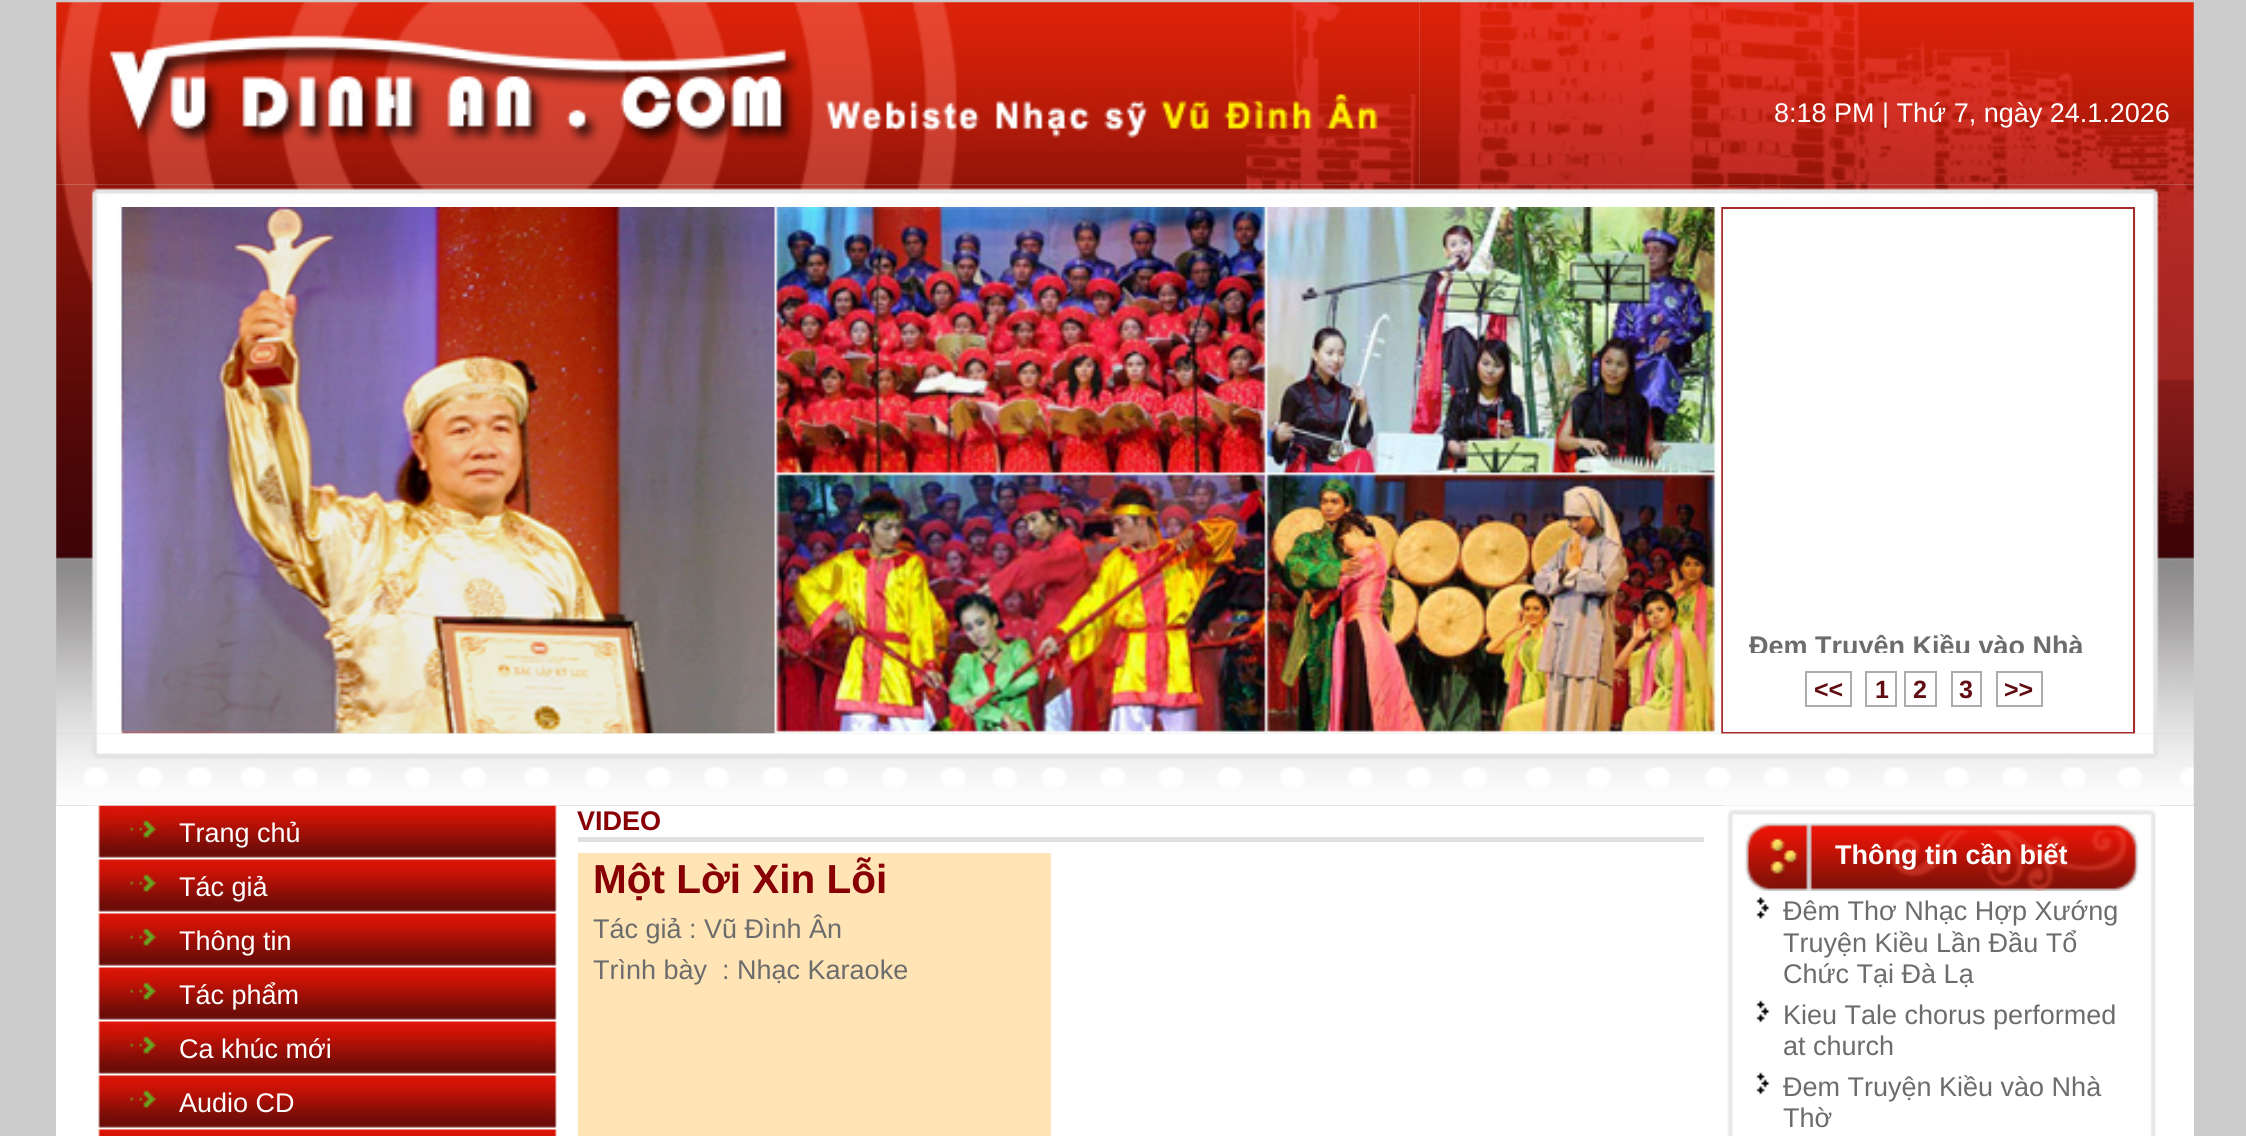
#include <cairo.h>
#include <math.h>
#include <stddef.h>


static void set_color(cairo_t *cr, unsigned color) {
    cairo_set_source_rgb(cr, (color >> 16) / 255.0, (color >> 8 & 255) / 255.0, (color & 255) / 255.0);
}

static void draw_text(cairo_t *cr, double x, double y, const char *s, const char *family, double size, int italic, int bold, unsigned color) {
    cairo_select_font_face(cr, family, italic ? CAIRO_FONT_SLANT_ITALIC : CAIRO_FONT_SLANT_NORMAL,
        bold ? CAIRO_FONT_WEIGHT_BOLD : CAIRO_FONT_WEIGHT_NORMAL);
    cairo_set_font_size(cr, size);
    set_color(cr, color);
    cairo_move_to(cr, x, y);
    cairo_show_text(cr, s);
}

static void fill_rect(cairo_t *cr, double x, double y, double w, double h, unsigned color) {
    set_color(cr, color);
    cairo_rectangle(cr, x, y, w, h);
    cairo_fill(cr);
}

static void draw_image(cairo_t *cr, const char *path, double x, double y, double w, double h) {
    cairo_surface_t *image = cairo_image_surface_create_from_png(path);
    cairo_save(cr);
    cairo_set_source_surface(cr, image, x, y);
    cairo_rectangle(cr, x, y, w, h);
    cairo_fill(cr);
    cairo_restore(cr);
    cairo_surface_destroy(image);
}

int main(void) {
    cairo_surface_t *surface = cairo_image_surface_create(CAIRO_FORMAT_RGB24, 2246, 1136);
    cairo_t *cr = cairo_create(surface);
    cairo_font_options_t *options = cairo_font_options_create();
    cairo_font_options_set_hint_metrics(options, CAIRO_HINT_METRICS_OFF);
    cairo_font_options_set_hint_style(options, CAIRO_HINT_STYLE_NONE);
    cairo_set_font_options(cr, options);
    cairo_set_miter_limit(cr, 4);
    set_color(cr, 0xCCCCCC);
    cairo_paint(cr);
    draw_image(cr, "assets/img2.png", 1419, 2, 775, 183);
    draw_image(cr, "assets/img1.png", 56, 2, 1364, 183);
    draw_text(cr, 1774, 122, "8:18 PM | Thứ 7, ngày 24.1.2026", "Liberation Sans", 27, 0, 0, 0xFFFFFF);
    draw_image(cr, "assets/img3.png", 56, 184, 2138, 23);
    draw_image(cr, "assets/img4.png", 56, 207, 61, 527);
    cairo_rectangle(cr, 1722, 208, 412, 525);
    cairo_fill_preserve(cr);
    set_color(cr, 0xA52A2A);
    cairo_stroke(cr);
    draw_image(cr, "assets/img5.png", 117, 207, 1605, 527);
    cairo_save(cr);
    cairo_rectangle(cr, 1748, 225, 383, 428);
    cairo_clip(cr);
    draw_text(cr, 1749, 655, "Đem Truyện Kiều vào Nhà", "Liberation Sans", 27, 0, 1, 0x6C6C6C);
    cairo_restore(cr);
    cairo_rectangle(cr, 1806, 672, 45, 34);
    set_color(cr, 0xACACAC);
    cairo_stroke(cr);
    draw_text(cr, 1814, 698, "<<", "Liberation Sans", 25, 0, 1, 0x600D12);
    cairo_rectangle(cr, 1866, 672, 30, 34);
    set_color(cr, 0xACACAC);
    cairo_stroke(cr);
    draw_text(cr, 1875, 698, "1", "Liberation Sans", 25, 0, 1, 0x600D12);
    cairo_rectangle(cr, 1905, 672, 31, 34);
    set_color(cr, 0xACACAC);
    cairo_stroke(cr);
    draw_text(cr, 1913, 698, "2", "Liberation Sans", 25, 0, 1, 0x600D12);
    cairo_rectangle(cr, 1952, 672, 29, 34);
    set_color(cr, 0xACACAC);
    cairo_stroke(cr);
    draw_text(cr, 1959, 698, "3", "Liberation Sans", 25, 0, 1, 0x600D12);
    cairo_rectangle(cr, 1997, 672, 45, 34);
    set_color(cr, 0xACACAC);
    cairo_stroke(cr);
    draw_text(cr, 2004, 698, ">>", "Liberation Sans", 25, 0, 1, 0x600D12);
    draw_image(cr, "assets/img6.png", 2135, 207, 59, 527);
    fill_rect(cr, 56, 806, 2138, 330, 0xFFFFFF);
    draw_image(cr, "assets/img8.png", 90, 805, 468, 53);
    draw_image(cr, "assets/img7.png", 56, 733, 2138, 73);
    draw_text(cr, 179, 842, "Trang chủ", "Liberation Sans", 27, 0, 0, 0xFFFFFF);
    draw_image(cr, "assets/img9.png", 98, 859, 459, 53);
    draw_text(cr, 179, 896, "Tác giả", "Liberation Sans", 27, 0, 0, 0xFFFFFF);
    draw_image(cr, "assets/img9.png", 98, 913, 459, 53);
    draw_text(cr, 179, 950, "Thông tin", "Liberation Sans", 27, 0, 0, 0xFFFFFF);
    draw_image(cr, "assets/img9.png", 98, 967, 459, 53);
    draw_text(cr, 179, 1004, "Tác phẩm", "Liberation Sans", 27, 0, 0, 0xFFFFFF);
    draw_image(cr, "assets/img9.png", 98, 1021, 459, 53);
    draw_text(cr, 179, 1058, "Ca khúc mới", "Liberation Sans", 27, 0, 0, 0xFFFFFF);
    draw_image(cr, "assets/img9.png", 98, 1075, 459, 53);
    draw_text(cr, 179, 1112, "Audio CD", "Liberation Sans", 27, 0, 0, 0xFFFFFF);
    draw_image(cr, "assets/img10.png", 98, 1129, 459, 7);
    draw_text(cr, 577, 830, "VIDEO", "Liberation Sans", 27, 0, 1, 0x880003);
    fill_rect(cr, 578, 837, 1126, 5, 0xE1DFE0);
    fill_rect(cr, 578, 853, 473, 283, 0xFFE4B5);
    draw_text(cr, 593, 893, "Một Lời Xin Lỗi", "Liberation Sans", 40.5, 0, 1, 0x880003);
    draw_text(cr, 593, 938, "Tác giả : Vũ Đình Ân", "Liberation Sans", 27, 0, 0, 0x6C6C6C);
    draw_text(cr, 593, 979, "Trình bày  : Nhạc Karaoke", "Liberation Sans", 27, 0, 0, 0x6C6C6C);
    draw_image(cr, "assets/img11.png", 1723, 805, 437, 14);
    draw_image(cr, "assets/img12.png", 1727, 819, 429, 72);
    draw_text(cr, 1835, 864, "Thông tin cần biết", "Liberation Sans", 27, 0, 1, 0xFFFFFF);
    draw_image(cr, "assets/img13.png", 1727, 891, 429, 245);
    draw_image(cr, "assets/img14.png", 1756, 897, 14, 22);
    draw_text(cr, 1783, 920, "Đêm Thơ Nhạc Hợp Xướng", "Liberation Sans", 27, 0, 0, 0x6C6C6C);
    draw_text(cr, 1783, 952, "Truyện Kiều Lần Đầu Tổ", "Liberation Sans", 27, 0, 0, 0x6C6C6C);
    draw_text(cr, 1783, 983, "Chức Tại Đà Lạ", "Liberation Sans", 27, 0, 0, 0x6C6C6C);
    draw_image(cr, "assets/img15.png", 1756, 1000, 14, 23);
    draw_text(cr, 1783, 1024, "Kieu Tale chorus performed", "Liberation Sans", 27, 0, 0, 0x6C6C6C);
    draw_text(cr, 1783, 1055, "at church", "Liberation Sans", 27, 0, 0, 0x6C6C6C);
    draw_image(cr, "assets/img15.png", 1756, 1072, 14, 23);
    draw_text(cr, 1783, 1096, "Đem Truyện Kiều vào Nhà", "Liberation Sans", 27, 0, 0, 0x6C6C6C);
    draw_text(cr, 1783, 1127, "Thờ", "Liberation Sans", 27, 0, 0, 0x6C6C6C);
    cairo_surface_write_to_png(surface, "output.png");
    cairo_font_options_destroy(options);
    cairo_destroy(cr);
    cairo_surface_destroy(surface);
    return 0;
}
